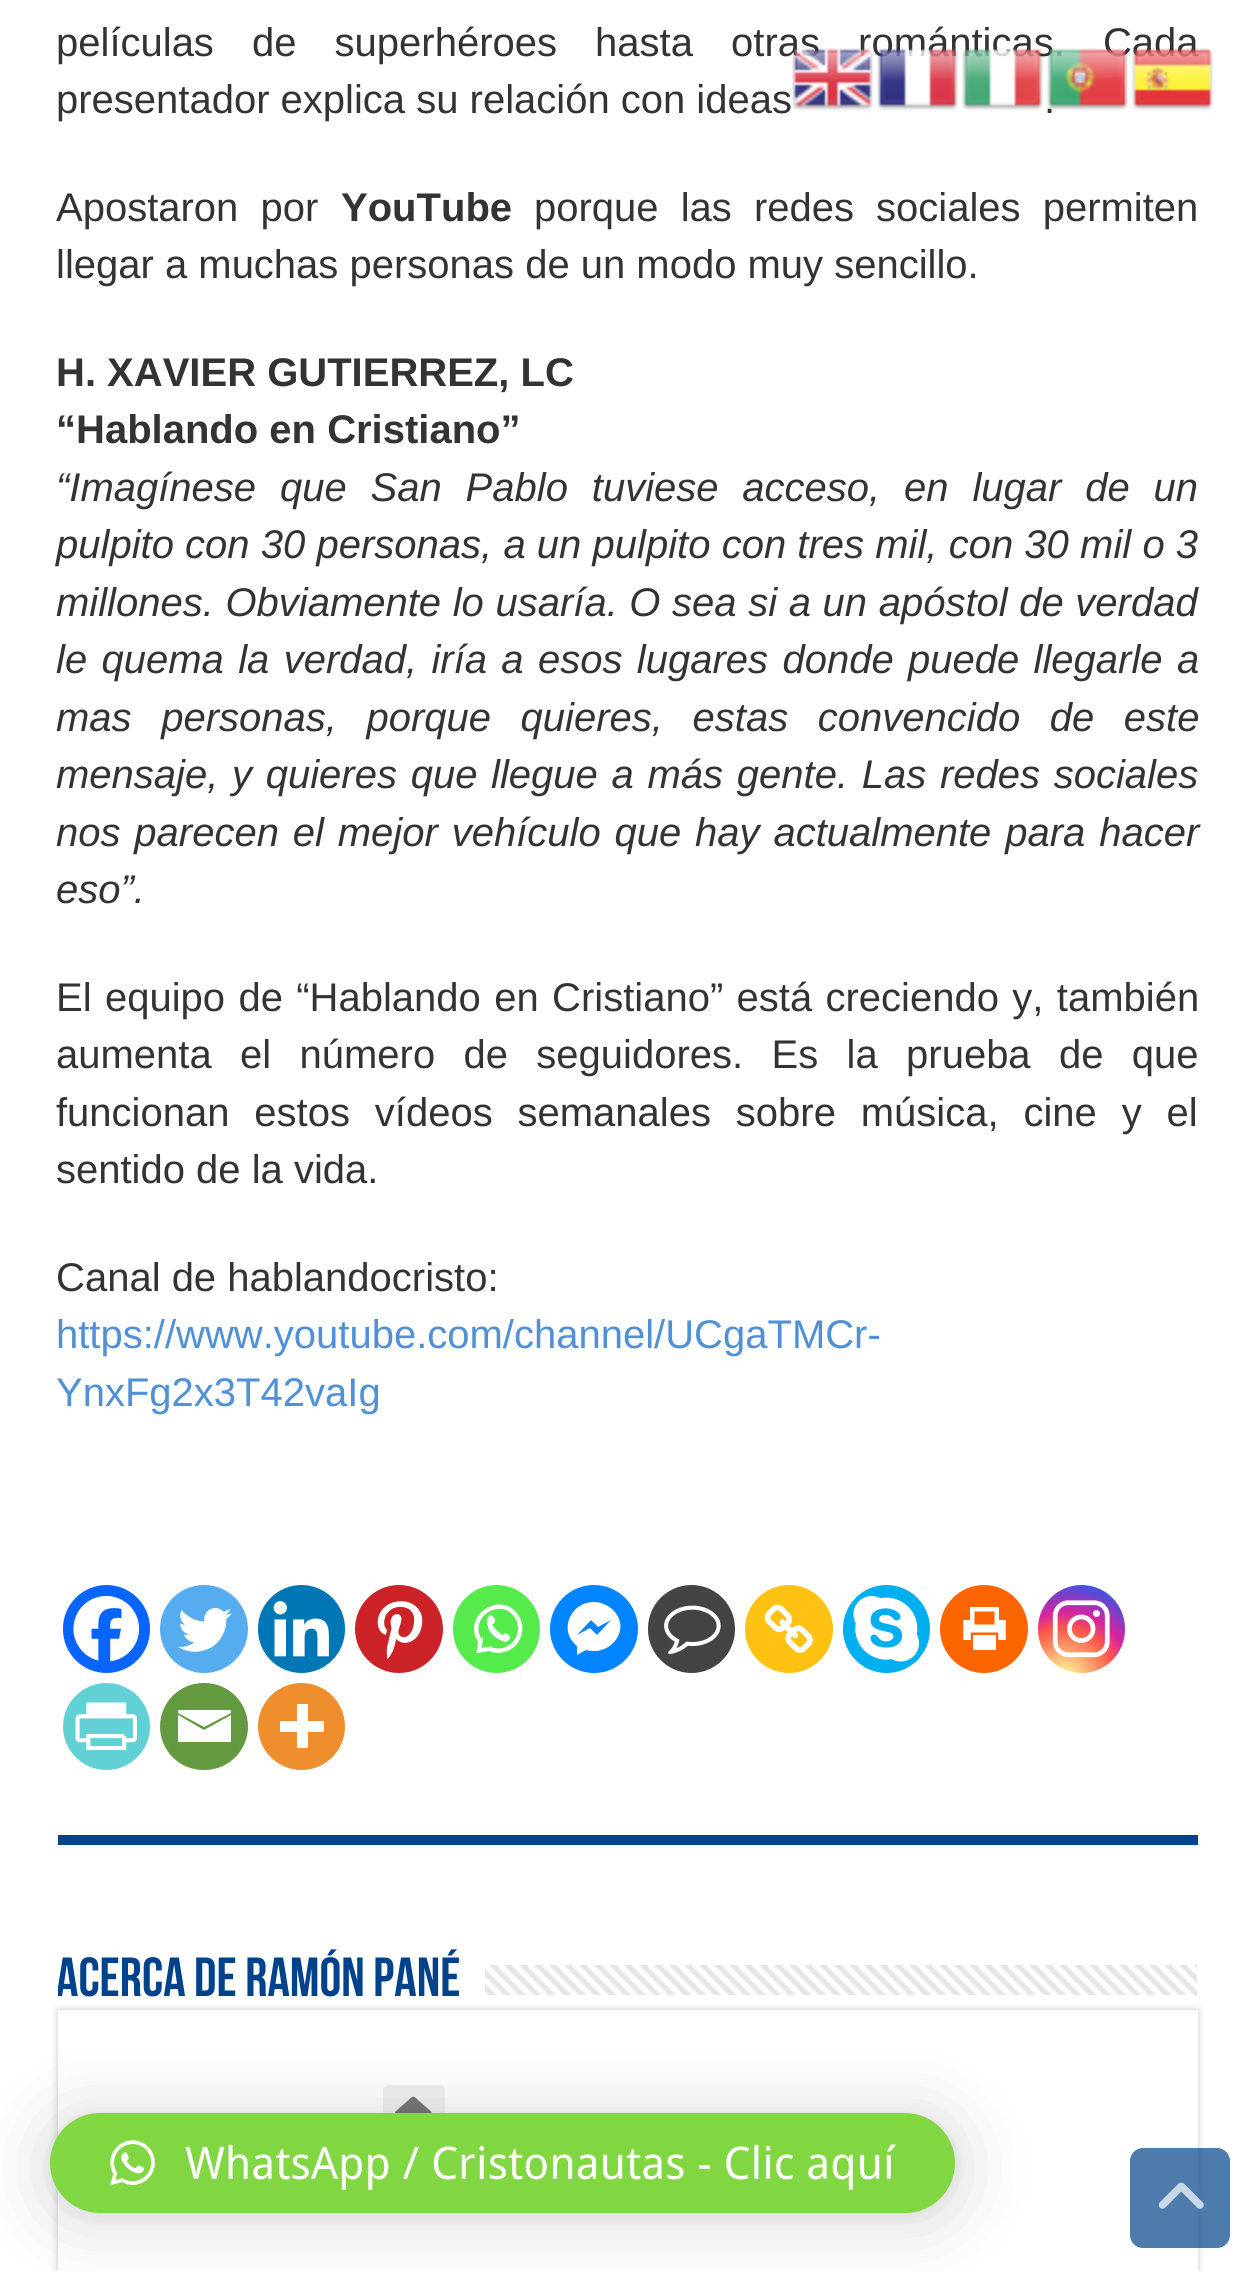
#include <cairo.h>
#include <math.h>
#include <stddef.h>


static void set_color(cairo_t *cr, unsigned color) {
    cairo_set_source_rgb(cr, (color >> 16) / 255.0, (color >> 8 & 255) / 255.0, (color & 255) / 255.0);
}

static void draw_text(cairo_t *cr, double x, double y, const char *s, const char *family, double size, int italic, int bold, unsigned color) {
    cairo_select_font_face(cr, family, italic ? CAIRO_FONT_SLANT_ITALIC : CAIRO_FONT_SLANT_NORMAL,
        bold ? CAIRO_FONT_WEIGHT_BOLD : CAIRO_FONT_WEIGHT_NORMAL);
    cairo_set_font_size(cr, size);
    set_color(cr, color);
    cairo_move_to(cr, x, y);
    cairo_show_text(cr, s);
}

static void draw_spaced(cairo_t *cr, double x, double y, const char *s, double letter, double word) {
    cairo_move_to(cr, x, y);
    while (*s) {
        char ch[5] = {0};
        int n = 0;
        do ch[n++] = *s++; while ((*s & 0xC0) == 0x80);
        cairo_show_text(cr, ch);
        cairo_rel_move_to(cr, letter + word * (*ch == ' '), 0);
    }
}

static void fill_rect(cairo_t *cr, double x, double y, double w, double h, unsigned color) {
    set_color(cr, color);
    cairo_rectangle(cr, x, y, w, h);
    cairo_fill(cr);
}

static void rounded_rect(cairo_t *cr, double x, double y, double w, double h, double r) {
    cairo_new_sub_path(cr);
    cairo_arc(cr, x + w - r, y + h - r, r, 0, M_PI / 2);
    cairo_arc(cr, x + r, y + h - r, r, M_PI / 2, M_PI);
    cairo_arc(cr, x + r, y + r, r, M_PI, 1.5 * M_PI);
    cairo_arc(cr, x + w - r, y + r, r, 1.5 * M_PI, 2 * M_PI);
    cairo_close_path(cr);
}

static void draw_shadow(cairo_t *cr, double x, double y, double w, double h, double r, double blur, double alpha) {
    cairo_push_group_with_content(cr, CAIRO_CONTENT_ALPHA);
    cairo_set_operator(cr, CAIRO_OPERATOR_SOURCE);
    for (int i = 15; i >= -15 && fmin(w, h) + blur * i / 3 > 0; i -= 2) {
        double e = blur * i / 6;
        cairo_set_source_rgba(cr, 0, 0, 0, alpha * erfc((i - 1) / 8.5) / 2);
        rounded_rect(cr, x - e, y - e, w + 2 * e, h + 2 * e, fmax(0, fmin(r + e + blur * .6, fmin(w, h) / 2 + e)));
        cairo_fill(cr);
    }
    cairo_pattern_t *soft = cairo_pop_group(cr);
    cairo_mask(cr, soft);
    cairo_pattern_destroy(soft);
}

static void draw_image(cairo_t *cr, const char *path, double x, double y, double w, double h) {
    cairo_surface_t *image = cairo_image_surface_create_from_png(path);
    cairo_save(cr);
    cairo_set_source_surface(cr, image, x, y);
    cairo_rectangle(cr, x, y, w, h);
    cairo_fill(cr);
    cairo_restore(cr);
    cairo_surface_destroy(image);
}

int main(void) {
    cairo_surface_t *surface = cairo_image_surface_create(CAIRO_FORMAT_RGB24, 1253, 2271);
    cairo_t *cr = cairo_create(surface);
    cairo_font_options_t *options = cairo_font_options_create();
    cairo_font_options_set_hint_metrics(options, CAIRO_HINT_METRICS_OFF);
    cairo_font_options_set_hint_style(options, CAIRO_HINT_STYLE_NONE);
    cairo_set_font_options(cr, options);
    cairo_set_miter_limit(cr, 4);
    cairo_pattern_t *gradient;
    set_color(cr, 0xFFFFFF);
    cairo_paint(cr);
    fill_rect(cr, 58, 1835, 1140, 10, 0x01438A);
    cairo_select_font_face(cr, "Liberation Sans", CAIRO_FONT_SLANT_NORMAL, CAIRO_FONT_WEIGHT_NORMAL);
    cairo_set_font_size(cr, 40);
    set_color(cr, 0x333333);
    draw_spaced(cr, 56, 56, "películas de superhéroes hasta otras románticas. Cada", 0, 27);
    draw_text(cr, 56, 113, "presentador explica su relación con ideas", "Liberation Sans", 40, 0, 0, 0x333333);
    draw_text(cr, 1044, 113, ".", "Liberation Sans", 40, 0, 0, 0x333333);
    draw_spaced(cr, 56, 221, "Apostaron por", 0, 11);
    draw_text(cr, 341, 221, "YouTube", "Liberation Sans", 40, 0, 1, 0x333333);
    cairo_select_font_face(cr, "Liberation Sans", CAIRO_FONT_SLANT_NORMAL, CAIRO_FONT_WEIGHT_NORMAL);
    draw_spaced(cr, 534, 221, "porque las redes sociales permiten", 0, 11);
    draw_text(cr, 56, 278, "llegar a muchas personas de un modo muy sencillo.", "Liberation Sans", 40, 0, 0, 0x333333);
    draw_text(cr, 56, 386, "H. XAVIER GUTIERREZ, LC", "Liberation Sans", 40, 0, 1, 0x333333);
    draw_text(cr, 56, 443, "“Hablando en Cristiano”", "Liberation Sans", 40, 0, 1, 0x333333);
    cairo_select_font_face(cr, "Liberation Sans", CAIRO_FONT_SLANT_ITALIC, CAIRO_FONT_WEIGHT_NORMAL);
    draw_spaced(cr, 56, 501, "“Imagínese que San Pablo tuviese acceso, en lugar de un", 0, 12.75);
    draw_spaced(cr, 56, 558, "pulpito con 30 personas, a un pulpito con tres mil, con 30 mil o 3", 0, 0.1);
    draw_spaced(cr, 56, 616, "millones. Obviamente lo usaría. O sea si a un apóstol de verdad", 0, 0.5);
    draw_spaced(cr, 56, 673, "le quema la verdad, iría a esos lugares donde puede llegarle a", 0, 3.25);
    draw_spaced(cr, 56, 731, "mas personas, porque quieres, estas convencido de este", 0, 18.5);
    draw_spaced(cr, 56, 788, "mensaje, y quieres que llegue a más gente. Las redes sociales", 0, 2.6);
    draw_spaced(cr, 56, 846, "nos parecen el mejor vehículo que hay actualmente para hacer", 0, 2.75);
    draw_text(cr, 56, 903, "eso”.", "Liberation Sans", 40, 1, 0, 0x333333);
    cairo_select_font_face(cr, "Liberation Sans", CAIRO_FONT_SLANT_NORMAL, CAIRO_FONT_WEIGHT_NORMAL);
    draw_spaced(cr, 56, 1011, "El equipo de “Hablando en Cristiano” está creciendo y, también", 0, 2.25);
    draw_spaced(cr, 56, 1068, "aumenta el número de seguidores. Es la prueba de que", 0, 17.25);
    draw_spaced(cr, 56, 1126, "funcionan estos vídeos semanales sobre música, cine y el", 0, 13.75);
    draw_text(cr, 56, 1183, "sentido de la vida.", "Liberation Sans", 40, 0, 0, 0x333333);
    draw_text(cr, 56, 1291, "Canal de hablandocristo:", "Liberation Sans", 40, 0, 0, 0x333333);
    draw_text(cr, 56, 1348, "https://www.youtube.com/channel/UCgaTMCr-", "Liberation Sans", 40, 0, 0, 0x4F90D6);
    draw_text(cr, 56, 1406, "YnxFg2x3T42vaIg", "Liberation Sans", 40, 0, 0, 0x4F90D6);
    set_color(cr, 0x0765FE);
    rounded_rect(cr, 63, 1585, 87, 88, 43.5);
    cairo_fill(cr);
    draw_image(cr, "assets/img1.png", 73, 1595, 67, 67);
    set_color(cr, 0x55ACEE);
    cairo_arc(cr, 204, 1629, 44, 0, 2 * M_PI);
    cairo_fill(cr);
    draw_image(cr, "assets/img2.png", 178, 1608, 54, 44);
    set_color(cr, 0x0077B5);
    rounded_rect(cr, 258, 1585, 87, 88, 43.5);
    cairo_fill(cr);
    draw_image(cr, "assets/img3.png", 273, 1601, 56, 56);
    set_color(cr, 0xCC2329);
    cairo_arc(cr, 399, 1629, 44, 0, 2 * M_PI);
    cairo_fill(cr);
    draw_image(cr, "assets/img4.png", 377, 1601, 46, 58);
    set_color(cr, 0x55EB4C);
    rounded_rect(cr, 453, 1585, 87, 88, 43.5);
    cairo_fill(cr);
    cairo_new_path(cr);
    cairo_move_to(cr, 491, 1649.5);
    cairo_curve_to(cr, 502.5, 1653.5, 515.5, 1647, 519, 1635.5);
    cairo_curve_to(cr, 521, 1629.5, 520.5, 1622.5, 517, 1617);
    cairo_curve_to(cr, 501.5, 1592, 463.5, 1617, 480.5, 1641.5);
    cairo_move_to(cr, 481, 1637.5);
    cairo_line_to(cr, 479, 1650.5);
    cairo_line_to(cr, 492, 1648.5);
    set_color(cr, 0xFFFFFF);
    cairo_set_line_width(cr, 4.4);
    cairo_stroke(cr);
    cairo_new_path(cr);
    cairo_move_to(cr, 487.5, 1618);
    cairo_curve_to(cr, 486, 1629.5, 492, 1637.5, 505, 1642);
    cairo_curve_to(cr, 516, 1639.5, 505, 1629, 503, 1635.5);
    cairo_curve_to(cr, 497, 1631, 493.5, 1627.5, 492, 1624.5);
    cairo_curve_to(cr, 500.5, 1620, 489.5, 1613.5, 489.5, 1615.5);
    cairo_fill(cr);
    set_color(cr, 0x0084FF);
    cairo_arc(cr, 594, 1629, 44, 0, 2 * M_PI);
    cairo_fill(cr);
    set_color(cr, 0xFFFFFF);
    cairo_new_path(cr);
    cairo_move_to(cr, 594, 1602);
    cairo_curve_to(cr, 570, 1602, 558, 1631, 577, 1646);
    cairo_line_to(cr, 577, 1655);
    cairo_line_to(cr, 586, 1650);
    cairo_curve_to(cr, 611, 1657, 633, 1628, 612, 1609);
    cairo_curve_to(cr, 607, 1605, 601, 1602, 594, 1602);
    cairo_close_path(cr);
    cairo_move_to(cr, 597, 1635);
    cairo_line_to(cr, 590, 1628);
    cairo_line_to(cr, 577, 1635);
    cairo_line_to(cr, 591, 1620);
    cairo_line_to(cr, 598, 1627);
    cairo_line_to(cr, 611, 1620);
    cairo_close_path(cr);
    cairo_fill(cr);
    set_color(cr, 0x444444);
    rounded_rect(cr, 648, 1585, 87, 88, 43.5);
    cairo_fill(cr);
    draw_image(cr, "assets/img5.png", 664, 1605, 57, 50);
    set_color(cr, 0xFFC112);
    cairo_arc(cr, 789, 1629, 44, 0, 2 * M_PI);
    cairo_fill(cr);
    draw_image(cr, "assets/img6.png", 764, 1604, 49, 49);
    set_color(cr, 0x00AFF0);
    rounded_rect(cr, 843, 1585, 87, 88, 43.5);
    cairo_fill(cr);
    draw_image(cr, "assets/img7.png", 853, 1596, 67, 66);
    set_color(cr, 0xFD6500);
    cairo_arc(cr, 984, 1629, 44, 0, 2 * M_PI);
    cairo_fill(cr);
    draw_image(cr, "assets/img8.png", 963, 1607, 43, 43);
    gradient = cairo_pattern_create_radial(1064, 1679, 0, 1064, 1679, 112);
    cairo_pattern_add_color_stop_rgba(gradient, 0, 0.992, 0.957, 0.592, 1);
    cairo_pattern_add_color_stop_rgba(gradient, 0.05, 0.992, 0.957, 0.592, 1);
    cairo_pattern_add_color_stop_rgba(gradient, 0.45, 0.992, 0.349, 0.286, 1);
    cairo_pattern_add_color_stop_rgba(gradient, 0.6, 0.839, 0.141, 0.624, 1);
    cairo_pattern_add_color_stop_rgba(gradient, 0.9, 0.157, 0.353, 0.922, 1);
    cairo_set_source(cr, gradient);
    cairo_pattern_destroy(gradient);
    rounded_rect(cr, 1038, 1585, 87, 88, 43.5);
    cairo_fill(cr);
    draw_image(cr, "assets/img9.png", 1052, 1600, 58, 58);
    set_color(cr, 0x61D1D5);
    cairo_arc(cr, 106.5, 1726.5, 43.5, 0, 2 * M_PI);
    cairo_fill(cr);
    draw_image(cr, "assets/img10.png", 75, 1702, 62, 49);
    set_color(cr, 0x649A3F);
    rounded_rect(cr, 160, 1683, 88, 87, 43.5);
    cairo_fill(cr);
    set_color(cr, 0xFFFFFF);
    cairo_new_path(cr);
    cairo_move_to(cr, 175, 1710);
    cairo_line_to(cr, 231, 1710);
    cairo_line_to(cr, 231, 1713);
    cairo_line_to(cr, 204, 1727);
    cairo_line_to(cr, 178, 1713);
    cairo_line_to(cr, 178, 1710);
    cairo_move_to(cr, 178, 1715);
    cairo_line_to(cr, 204, 1730);
    cairo_line_to(cr, 231, 1715);
    cairo_line_to(cr, 231, 1742);
    cairo_line_to(cr, 178, 1742);
    cairo_line_to(cr, 178, 1715);
    cairo_fill(cr);
    set_color(cr, 0xEE8E2D);
    cairo_arc(cr, 301.5, 1726.5, 43.5, 0, 2 * M_PI);
    cairo_fill(cr);
    set_color(cr, 0xFFFFFF);
    cairo_set_fill_rule(cr, CAIRO_FILL_RULE_EVEN_ODD);
    cairo_new_path(cr);
    cairo_move_to(cr, 308, 1721);
    cairo_line_to(cr, 308, 1704);
    cairo_line_to(cr, 297, 1704);
    cairo_line_to(cr, 297, 1721);
    cairo_line_to(cr, 280, 1721);
    cairo_line_to(cr, 280, 1732);
    cairo_line_to(cr, 297, 1732);
    cairo_line_to(cr, 297, 1748);
    cairo_line_to(cr, 308, 1748);
    cairo_line_to(cr, 308, 1732);
    cairo_line_to(cr, 324, 1732);
    cairo_line_to(cr, 324, 1721);
    cairo_close_path(cr);
    cairo_fill(cr);
    cairo_save(cr);
    cairo_set_fill_rule(cr, CAIRO_FILL_RULE_WINDING);
    cairo_rectangle(cr, 58, 1945, 1140, 65);
    cairo_clip(cr);
    draw_text(cr, 56, 1996, "Acerca de Ramón Pané", "Bebas Neue", 55, 0, 1, 0x01438A);
    cairo_restore(cr);
    draw_image(cr, "assets/img11.png", 485, 1965, 713, 30);
    set_color(cr, 0xCACACA);
    draw_shadow(cr, 58, 2010, 1140, 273, 0, 4, 1);
    fill_rect(cr, 58, 2010, 1140, 261, 0xFFFFFF);
    set_color(cr, 0xF1F1F1);
    rounded_rect(cr, 383, 2085, 62, 58, 5);
    cairo_fill(cr);
    draw_image(cr, "assets/img12.png", 395, 2096, 37, 17);
    draw_image(cr, "assets/img13.png", 792, 48, 81, 63);
    draw_image(cr, "assets/img14.png", 877, 48, 81, 63);
    draw_image(cr, "assets/img15.png", 962, 48, 81, 63);
    draw_image(cr, "assets/img16.png", 1047, 48, 81, 63);
    draw_image(cr, "assets/img17.png", 1132, 48, 81, 63);
    set_color(cr, 0x000000);
    draw_shadow(cr, 50, 2118, 905, 100, 50, 40, 0.16);
    draw_shadow(cr, 50, 2115, 905, 100, 50, 7.5, 0.06);
    set_color(cr, 0x81D742);
    rounded_rect(cr, 50, 2113, 905, 100, 50);
    cairo_fill(cr);
    draw_image(cr, "assets/img18.png", 110, 2140, 45, 46);
    draw_text(cr, 185, 2179, "WhatsApp / Cristonautas - Clic aquí", "Droid Sans", 45, 0, 0, 0xFFFFFF);
    cairo_set_source_rgba(cr, 0.004, 0.263, 0.541, 0.7);
    rounded_rect(cr, 1130, 2148, 100, 100, 13);
    cairo_fill(cr);
    draw_image(cr, "assets/img19.png", 1158, 2182, 46, 27);
    cairo_surface_write_to_png(surface, "output.png");
    cairo_font_options_destroy(options);
    cairo_destroy(cr);
    cairo_surface_destroy(surface);
    return 0;
}
